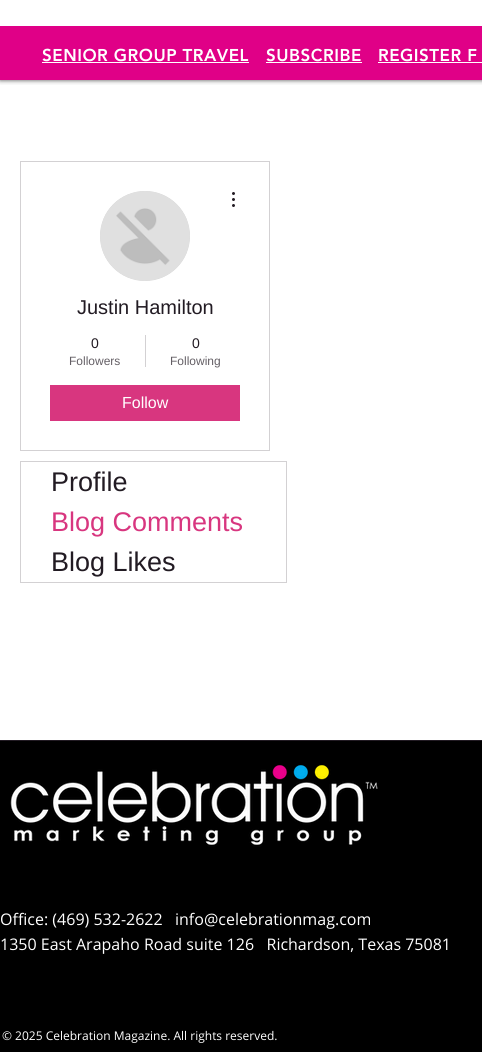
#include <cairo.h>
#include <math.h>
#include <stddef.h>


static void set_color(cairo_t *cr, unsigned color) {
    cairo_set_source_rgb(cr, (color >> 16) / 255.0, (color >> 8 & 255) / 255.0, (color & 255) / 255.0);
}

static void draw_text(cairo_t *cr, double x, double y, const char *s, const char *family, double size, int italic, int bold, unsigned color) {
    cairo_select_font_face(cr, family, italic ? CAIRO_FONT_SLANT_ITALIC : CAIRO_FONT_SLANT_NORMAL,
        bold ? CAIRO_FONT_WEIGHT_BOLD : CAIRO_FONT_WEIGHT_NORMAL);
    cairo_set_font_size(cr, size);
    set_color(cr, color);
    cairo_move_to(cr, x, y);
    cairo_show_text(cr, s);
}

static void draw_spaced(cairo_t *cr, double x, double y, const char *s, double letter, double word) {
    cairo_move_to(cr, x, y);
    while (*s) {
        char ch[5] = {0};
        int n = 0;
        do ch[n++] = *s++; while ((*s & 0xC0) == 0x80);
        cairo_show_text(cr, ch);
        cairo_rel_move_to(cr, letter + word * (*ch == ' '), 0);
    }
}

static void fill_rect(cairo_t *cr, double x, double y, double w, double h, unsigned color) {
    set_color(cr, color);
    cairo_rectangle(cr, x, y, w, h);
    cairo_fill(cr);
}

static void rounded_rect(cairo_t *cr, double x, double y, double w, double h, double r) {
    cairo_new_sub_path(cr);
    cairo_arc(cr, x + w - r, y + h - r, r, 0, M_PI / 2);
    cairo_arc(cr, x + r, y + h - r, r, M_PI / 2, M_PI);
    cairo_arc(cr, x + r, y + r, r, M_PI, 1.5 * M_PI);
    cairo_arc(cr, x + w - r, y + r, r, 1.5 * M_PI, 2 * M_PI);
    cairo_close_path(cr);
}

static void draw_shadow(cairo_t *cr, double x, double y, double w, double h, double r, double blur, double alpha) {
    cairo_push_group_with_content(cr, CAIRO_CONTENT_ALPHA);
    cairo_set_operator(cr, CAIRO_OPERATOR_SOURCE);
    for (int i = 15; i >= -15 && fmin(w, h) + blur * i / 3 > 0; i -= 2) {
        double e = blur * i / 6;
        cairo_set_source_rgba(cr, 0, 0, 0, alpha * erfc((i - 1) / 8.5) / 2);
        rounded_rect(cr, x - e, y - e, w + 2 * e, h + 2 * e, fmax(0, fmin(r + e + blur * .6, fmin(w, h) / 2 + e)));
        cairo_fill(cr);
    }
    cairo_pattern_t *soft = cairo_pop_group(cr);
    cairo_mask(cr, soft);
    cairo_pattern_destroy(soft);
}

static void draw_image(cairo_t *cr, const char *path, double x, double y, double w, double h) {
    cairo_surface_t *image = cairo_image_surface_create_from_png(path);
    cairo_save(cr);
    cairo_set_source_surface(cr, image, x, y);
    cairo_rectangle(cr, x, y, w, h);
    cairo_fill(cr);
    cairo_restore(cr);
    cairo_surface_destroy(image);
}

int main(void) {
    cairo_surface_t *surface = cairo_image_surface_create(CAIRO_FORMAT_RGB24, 482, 1052);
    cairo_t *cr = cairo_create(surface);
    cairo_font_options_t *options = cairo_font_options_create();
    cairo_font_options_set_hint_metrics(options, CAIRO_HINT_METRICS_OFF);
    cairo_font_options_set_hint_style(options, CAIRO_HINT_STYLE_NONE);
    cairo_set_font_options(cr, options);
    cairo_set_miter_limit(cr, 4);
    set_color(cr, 0xFFFFFF);
    cairo_paint(cr);
    cairo_save(cr);
    cairo_rectangle(cr, 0, 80, 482, 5);
    cairo_clip(cr);
    set_color(cr, 0x000000);
    draw_shadow(cr, 0, -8, 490, 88, 0, 2.5, 0.7);
    cairo_restore(cr);
    fill_rect(cr, 0, 26, 482, 54, 0xE00087);
    cairo_select_font_face(cr, "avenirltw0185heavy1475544 Black", CAIRO_FONT_SLANT_NORMAL, CAIRO_FONT_WEIGHT_NORMAL);
    cairo_set_font_size(cr, 17);
    set_color(cr, 0xFFFFFF);
    draw_spaced(cr, 42, 61, "SENIOR GROUP TRAVEL", 0.5, 0);
    fill_rect(cr, 42, 62, 207, 1, 0xFFFFFF);
    draw_spaced(cr, 266, 61, "SUBSCRIBE", 0.5, 0);
    fill_rect(cr, 266, 62, 96, 1, 0xFFFFFF);
    draw_spaced(cr, 378, 61, "REGISTER F", 0.5, 0);
    fill_rect(cr, 378, 62, 104, 1, 0xFFFFFF);
    cairo_rectangle(cr, 20.5, 161.5, 249, 289);
    set_color(cr, 0xD3D1D3);
    cairo_set_line_width(cr, 1);
    cairo_stroke(cr);
    set_color(cr, 0xD8D8D8);
    cairo_arc(cr, 145, 236, 45, 0, 2 * M_PI);
    cairo_fill(cr);
    draw_image(cr, "assets/img1.png", 100, 191, 90, 90);
    draw_image(cr, "assets/img2.png", 232, 192, 3, 15);
    draw_text(cr, 77, 314, "Justin Hamilton", "Liberation Sans", 20, 0, 0, 0x221B23);
    draw_text(cr, 91, 348, "0", "Liberation Sans", 14, 0, 0, 0x221B23);
    draw_text(cr, 69, 365, "Followers", "Liberation Sans", 12, 0, 0, 0x645F65);
    fill_rect(cr, 145, 335, 1, 32, 0xD3D1D3);
    draw_text(cr, 192, 348, "0", "Liberation Sans", 14, 0, 0, 0x221B23);
    draw_text(cr, 170, 365, "Following", "Liberation Sans", 12, 0, 0, 0x645F65);
    fill_rect(cr, 50, 385, 190, 36, 0xD8367F);
    draw_text(cr, 122, 408, "Follow", "Liberation Sans", 16, 0, 0, 0xFFFFFF);
    cairo_rectangle(cr, 20.5, 461.5, 266, 121);
    set_color(cr, 0xD3D1D3);
    cairo_stroke(cr);
    draw_text(cr, 51, 491, "Profile", "Liberation Sans", 27, 0, 0, 0x221B23);
    draw_text(cr, 51, 531, "Blog Comments", "Liberation Sans", 27, 0, 0, 0xD8367F);
    draw_text(cr, 51, 571, "Blog Likes", "Liberation Sans", 27, 0, 0, 0x221B23);
    fill_rect(cr, 0, 741, 482, 311, 0x000000);
    fill_rect(cr, 0, 740, 482, 1, 0x221B23);
    draw_image(cr, "assets/img3.png", 10, 765, 369, 82);
    draw_text(cr, 0, 925, "Office: (469) 532-2622", "Open Sans", 16, 0, 0, 0xFFFFFF);
    draw_text(cr, 175, 925, "info@celebrationmag.com", "Open Sans", 16, 0, 0, 0xFFFFFF);
    draw_text(cr, 0, 950, "1350 East Arapaho Road suite 126   Richardson, Texas 75081", "Open Sans", 16, 0, 0, 0xFFFFFF);
    draw_text(cr, 2, 1040, "© 2025 Celebration Magazine. All rights reserved.", "Open Sans", 12, 0, 0, 0xFFFFFF);
    cairo_surface_write_to_png(surface, "output.png");
    cairo_font_options_destroy(options);
    cairo_destroy(cr);
    cairo_surface_destroy(surface);
    return 0;
}
